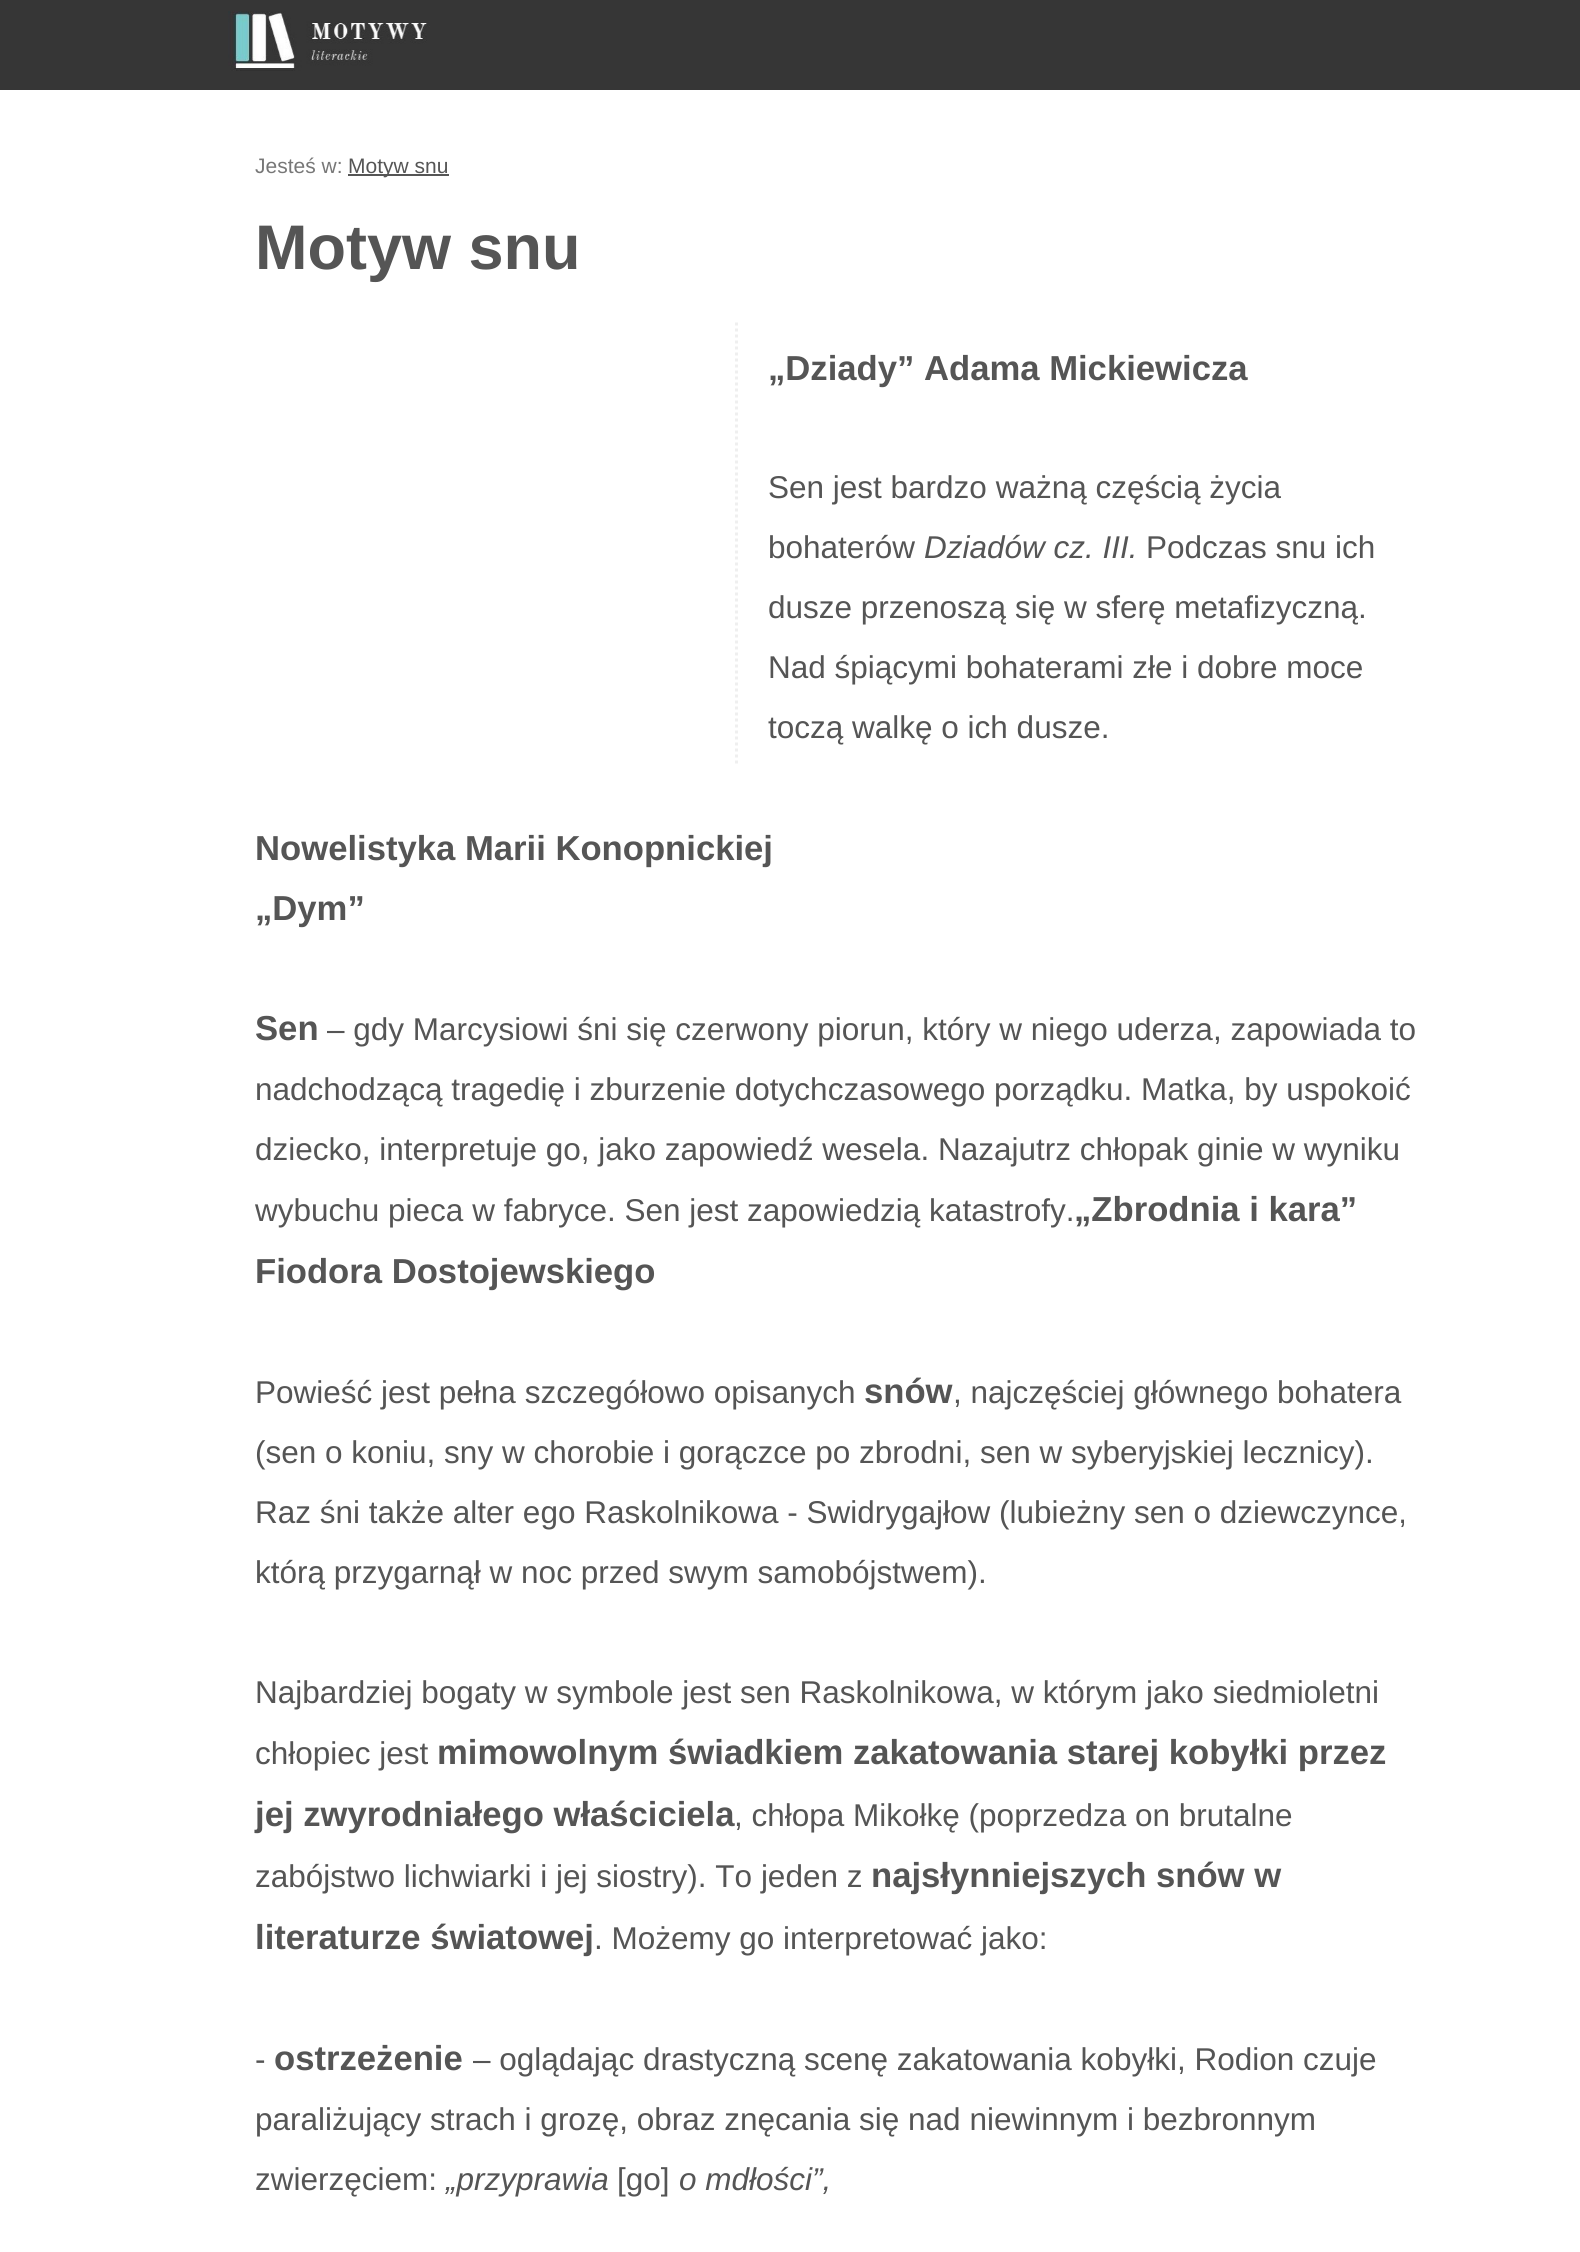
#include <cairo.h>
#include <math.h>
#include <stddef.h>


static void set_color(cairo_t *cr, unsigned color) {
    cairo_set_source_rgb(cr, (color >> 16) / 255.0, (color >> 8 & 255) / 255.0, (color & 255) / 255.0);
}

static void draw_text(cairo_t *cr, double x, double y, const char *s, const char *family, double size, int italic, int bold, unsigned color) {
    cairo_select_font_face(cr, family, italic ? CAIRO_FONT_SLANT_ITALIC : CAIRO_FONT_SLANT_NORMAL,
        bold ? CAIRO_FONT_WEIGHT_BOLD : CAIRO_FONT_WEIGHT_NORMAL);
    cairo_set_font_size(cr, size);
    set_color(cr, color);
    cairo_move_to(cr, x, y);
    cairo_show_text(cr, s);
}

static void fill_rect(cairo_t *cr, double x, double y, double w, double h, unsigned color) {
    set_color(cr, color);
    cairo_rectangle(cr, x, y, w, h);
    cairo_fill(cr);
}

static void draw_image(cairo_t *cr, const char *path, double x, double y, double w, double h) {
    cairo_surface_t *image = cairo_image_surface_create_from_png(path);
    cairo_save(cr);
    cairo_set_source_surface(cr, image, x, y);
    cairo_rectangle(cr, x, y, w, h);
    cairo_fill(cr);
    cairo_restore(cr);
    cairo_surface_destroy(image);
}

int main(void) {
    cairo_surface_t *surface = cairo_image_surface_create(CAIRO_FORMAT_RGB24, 1580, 2252);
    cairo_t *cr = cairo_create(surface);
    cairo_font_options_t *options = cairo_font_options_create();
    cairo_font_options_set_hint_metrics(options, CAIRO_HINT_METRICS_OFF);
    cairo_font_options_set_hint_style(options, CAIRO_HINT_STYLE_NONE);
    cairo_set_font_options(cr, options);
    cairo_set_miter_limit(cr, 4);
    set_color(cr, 0xFFFFFF);
    cairo_paint(cr);
    fill_rect(cr, 0, 0, 1580, 90, 0x363636);
    draw_image(cr, "assets/img1.png", 228, 11, 202, 60);
    draw_text(cr, 255, 173, "Jesteś w:", "Liberation Sans", 21, 0, 0, 0x777777);
    fill_rect(cr, 348, 174, 101, 2, 0x555555);
    draw_text(cr, 348, 173, "Motyw snu", "Liberation Sans", 21, 0, 0, 0x555555);
    draw_text(cr, 255, 269, "Motyw snu", "Liberation Sans", 63, 0, 1, 0x555555);
    cairo_new_path(cr);
    cairo_move_to(cr, 736.5, 322.5);
    cairo_line_to(cr, 736.5, 765);
    set_color(cr, 0xEFEFEF);
    cairo_set_line_width(cr, 3);
    cairo_set_dash(cr, (double[]){3, 3}, 2, 0);
    cairo_stroke(cr);
    draw_text(cr, 768, 380, "„Dziady” Adama Mickiewicza", "Liberation Sans", 34.65, 0, 1, 0x555555);
    draw_text(cr, 768, 498, "Sen jest bardzo ważną częścią życia", "Liberation Sans", 31.5, 0, 0, 0x555555);
    draw_text(cr, 768, 558, "bohaterów", "Liberation Sans", 31.5, 0, 0, 0x555555);
    draw_text(cr, 924, 558, "Dziadów cz. III.", "Liberation Sans", 31.5, 1, 0, 0x555555);
    draw_text(cr, 1146, 558, "Podczas snu ich", "Liberation Sans", 31.5, 0, 0, 0x555555);
    draw_text(cr, 768, 618, "dusze przenoszą się w sferę metafizyczną.", "Liberation Sans", 31.5, 0, 0, 0x555555);
    draw_text(cr, 768, 678, "Nad śpiącymi bohaterami złe i dobre moce", "Liberation Sans", 31.5, 0, 0, 0x555555);
    draw_text(cr, 768, 738, "toczą walkę o ich dusze.", "Liberation Sans", 31.5, 0, 0, 0x555555);
    draw_text(cr, 255, 860, "Nowelistyka Marii Konopnickiej", "Liberation Sans", 34.65, 0, 1, 0x555555);
    draw_text(cr, 255, 920, "„Dym”", "Liberation Sans", 34.65, 0, 1, 0x555555);
    draw_text(cr, 255, 1040, "Sen", "Liberation Sans", 34.65, 0, 1, 0x555555);
    draw_text(cr, 327, 1040, "– gdy Marcysiowi śni się czerwony piorun, który w niego uderza, zapowiada to", "Liberation Sans", 31.5, 0, 0, 0x555555);
    draw_text(cr, 255, 1100, "nadchodzącą tragedię i zburzenie dotychczasowego porządku. Matka, by uspokoić", "Liberation Sans", 31.5, 0, 0, 0x555555);
    draw_text(cr, 255, 1160, "dziecko, interpretuje go, jako zapowiedź wesela. Nazajutrz chłopak ginie w wyniku", "Liberation Sans", 31.5, 0, 0, 0x555555);
    draw_text(cr, 255, 1221, "wybuchu pieca w fabryce. Sen jest zapowiedzią katastrofy.", "Liberation Sans", 31.5, 0, 0, 0x555555);
    draw_text(cr, 1074, 1221, "„Zbrodnia i kara”", "Liberation Sans", 34.65, 0, 1, 0x555555);
    draw_text(cr, 255, 1283, "Fiodora Dostojewskiego", "Liberation Sans", 34.65, 0, 1, 0x555555);
    draw_text(cr, 255, 1403, "Powieść jest pełna szczegółowo opisanych", "Liberation Sans", 31.5, 0, 0, 0x555555);
    draw_text(cr, 864, 1403, "snów", "Liberation Sans", 34.65, 0, 1, 0x555555);
    draw_text(cr, 953, 1403, ", najczęściej głównego bohatera", "Liberation Sans", 31.5, 0, 0, 0x555555);
    draw_text(cr, 255, 1463, "(sen o koniu, sny w chorobie i gorączce po zbrodni, sen w syberyjskiej lecznicy).", "Liberation Sans", 31.5, 0, 0, 0x555555);
    draw_text(cr, 255, 1523, "Raz śni także alter ego Raskolnikowa - Swidrygajłow (lubieżny sen o dziewczynce,", "Liberation Sans", 31.5, 0, 0, 0x555555);
    draw_text(cr, 255, 1583, "którą przygarnął w noc przed swym samobójstwem).", "Liberation Sans", 31.5, 0, 0, 0x555555);
    draw_text(cr, 255, 1703, "Najbardziej bogaty w symbole jest sen Raskolnikowa, w którym jako siedmioletni", "Liberation Sans", 31.5, 0, 0, 0x555555);
    draw_text(cr, 255, 1764, "chłopiec jest", "Liberation Sans", 31.5, 0, 0, 0x555555);
    draw_text(cr, 437, 1764, "mimowolnym świadkiem zakatowania starej kobyłki przez", "Liberation Sans", 34.65, 0, 1, 0x555555);
    draw_text(cr, 255, 1826, "jej zwyrodniałego właściciela", "Liberation Sans", 34.65, 0, 1, 0x555555);
    draw_text(cr, 734, 1826, ", chłopa Mikołkę (poprzedza on brutalne", "Liberation Sans", 31.5, 0, 0, 0x555555);
    draw_text(cr, 255, 1887, "zabójstwo lichwiarki i jej siostry). To jeden z", "Liberation Sans", 31.5, 0, 0, 0x555555);
    draw_text(cr, 871, 1887, "najsłynniejszych snów w", "Liberation Sans", 34.65, 0, 1, 0x555555);
    draw_text(cr, 255, 1949, "literaturze światowej", "Liberation Sans", 34.65, 0, 1, 0x555555);
    draw_text(cr, 594, 1949, ". Możemy go interpretować jako:", "Liberation Sans", 31.5, 0, 0, 0x555555);
    draw_text(cr, 255, 2070, "-", "Liberation Sans", 31.5, 0, 0, 0x555555);
    draw_text(cr, 274, 2070, "ostrzeżenie", "Liberation Sans", 34.65, 0, 1, 0x555555);
    draw_text(cr, 473, 2070, "– oglądając drastyczną scenę zakatowania kobyłki, Rodion czuje", "Liberation Sans", 31.5, 0, 0, 0x555555);
    draw_text(cr, 255, 2130, "paraliżujący strach i grozę, obraz znęcania się nad niewinnym i bezbronnym", "Liberation Sans", 31.5, 0, 0, 0x555555);
    draw_text(cr, 255, 2190, "zwierzęciem:", "Liberation Sans", 31.5, 0, 0, 0x555555);
    draw_text(cr, 446, 2190, "„przyprawia", "Liberation Sans", 31.5, 1, 0, 0x555555);
    draw_text(cr, 617, 2190, "[go]", "Liberation Sans", 31.5, 0, 0, 0x555555);
    draw_text(cr, 679, 2190, "o mdłości”,", "Liberation Sans", 31.5, 1, 0, 0x555555);
    cairo_surface_write_to_png(surface, "output.png");
    cairo_font_options_destroy(options);
    cairo_destroy(cr);
    cairo_surface_destroy(surface);
    return 0;
}
